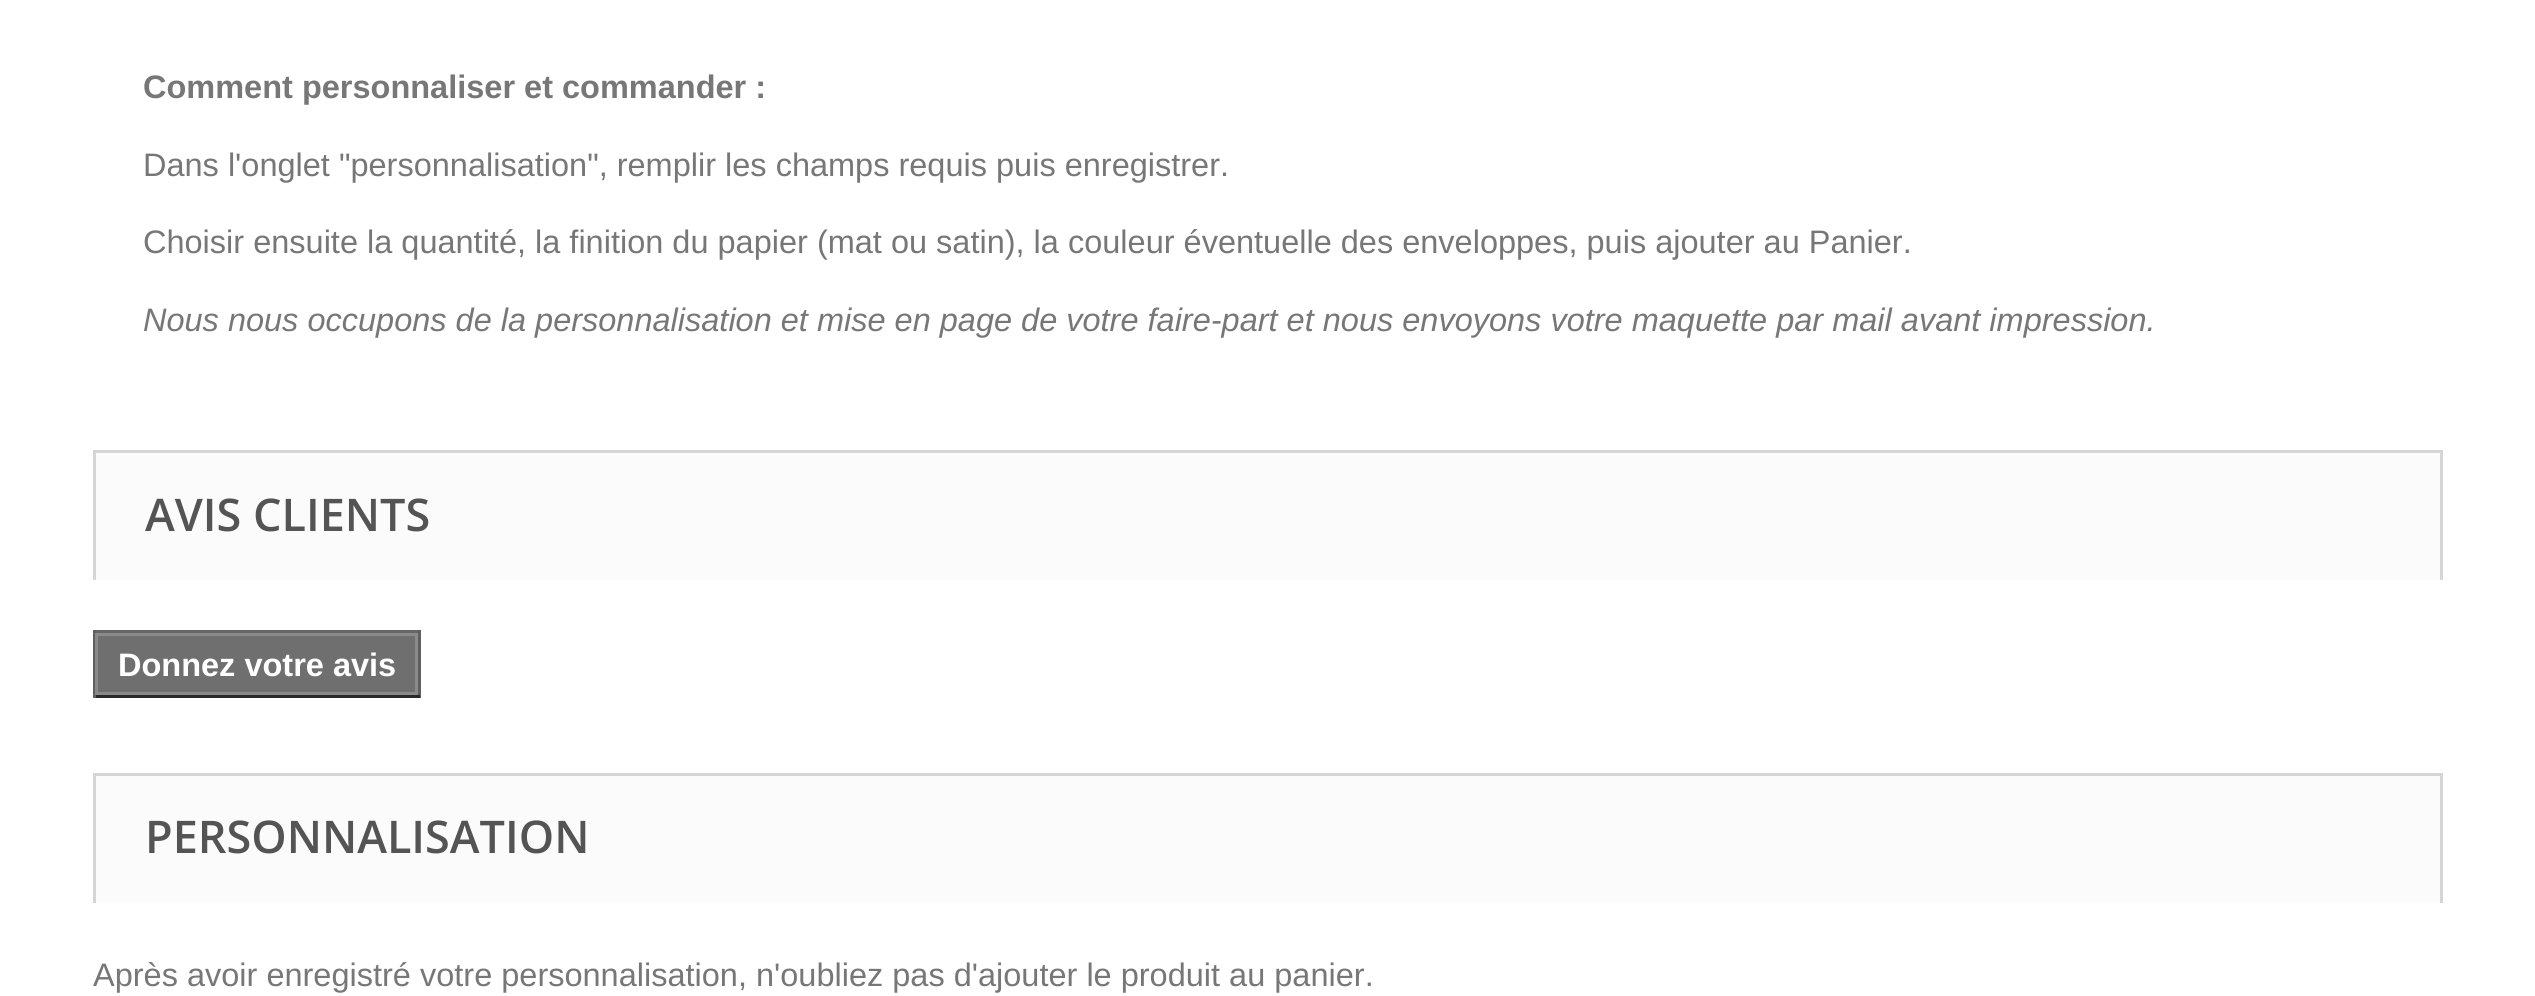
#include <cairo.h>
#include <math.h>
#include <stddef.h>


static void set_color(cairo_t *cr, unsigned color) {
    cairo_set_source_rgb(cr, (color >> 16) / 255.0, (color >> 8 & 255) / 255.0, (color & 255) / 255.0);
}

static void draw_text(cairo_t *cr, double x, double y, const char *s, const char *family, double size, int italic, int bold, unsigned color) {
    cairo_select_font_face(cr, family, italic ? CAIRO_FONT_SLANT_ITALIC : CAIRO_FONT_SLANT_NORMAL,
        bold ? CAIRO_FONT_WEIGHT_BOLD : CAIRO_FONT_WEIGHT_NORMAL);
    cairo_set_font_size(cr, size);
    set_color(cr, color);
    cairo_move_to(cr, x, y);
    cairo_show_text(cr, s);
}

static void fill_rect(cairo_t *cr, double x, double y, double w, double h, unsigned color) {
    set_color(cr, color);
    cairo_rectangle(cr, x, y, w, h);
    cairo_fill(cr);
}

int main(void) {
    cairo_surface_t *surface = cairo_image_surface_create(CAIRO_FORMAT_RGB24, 2535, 996);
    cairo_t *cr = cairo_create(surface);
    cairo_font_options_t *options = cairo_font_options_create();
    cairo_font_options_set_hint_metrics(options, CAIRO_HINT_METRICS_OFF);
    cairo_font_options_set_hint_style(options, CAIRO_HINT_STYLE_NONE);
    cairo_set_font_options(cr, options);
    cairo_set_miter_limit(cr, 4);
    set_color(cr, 0xFFFFFF);
    cairo_paint(cr);
    draw_text(cr, 143, 98, "Comment personnaliser et commander :", "Liberation Sans", 32.5, 0, 1, 0x777777);
    draw_text(cr, 143, 176, "Dans l'onglet \"personnalisation\", remplir les champs requis puis enregistrer.", "Liberation Sans", 32.5, 0, 0, 0x777777);
    draw_text(cr, 143, 253, "Choisir ensuite la quantité, la finition du papier (mat ou satin), la couleur éventuelle des enveloppes, puis ajouter au Panier.", "Liberation Sans", 32.5, 0, 0, 0x777777);
    draw_text(cr, 143, 331, "Nous nous occupons de la personnalisation et mise en page de votre faire-part et nous envoyons votre maquette par mail avant impression.", "Liberation Sans", 32.5, 1, 0, 0x777777);
    fill_rect(cr, 96, 453, 2344, 127, 0xFBFBFB);
    fill_rect(cr, 93, 450, 2350, 3, 0xD6D4D4);
    fill_rect(cr, 2440, 450, 3, 130, 0xD6D4D4);
    fill_rect(cr, 93, 450, 3, 130, 0xD6D4D4);
    draw_text(cr, 145, 531, "AVIS CLIENTS", "Open Sans SemiBold", 45, 0, 0, 0x555454);
    fill_rect(cr, 98, 636, 317, 56, 0x6F6F6F);
    fill_rect(cr, 93, 630, 327, 3, 0x666666);
    fill_rect(cr, 418, 630, 3, 68, 0x5F5F5F);
    fill_rect(cr, 93, 695, 327, 3, 0x292929);
    fill_rect(cr, 93, 630, 3, 68, 0x5F5F5F);
    cairo_rectangle(cr, 96.5, 634.5, 320, 59);
    set_color(cr, 0x8B8A8A);
    cairo_set_line_width(cr, 3);
    cairo_stroke(cr);
    draw_text(cr, 118, 676, "Donnez votre avis", "Liberation Sans", 32.5, 0, 1, 0xFFFFFF);
    fill_rect(cr, 96, 776, 2344, 127, 0xFBFBFB);
    fill_rect(cr, 93, 773, 2350, 3, 0xD6D4D4);
    fill_rect(cr, 2440, 773, 3, 130, 0xD6D4D4);
    fill_rect(cr, 93, 773, 3, 130, 0xD6D4D4);
    draw_text(cr, 145, 853, "PERSONNALISATION", "Open Sans SemiBold", 45, 0, 0, 0x555454);
    draw_text(cr, 93, 986, "Après avoir enregistré votre personnalisation, n'oubliez pas d'ajouter le produit au panier.", "Liberation Sans", 32.5, 0, 0, 0x777777);
    cairo_surface_write_to_png(surface, "output.png");
    cairo_font_options_destroy(options);
    cairo_destroy(cr);
    cairo_surface_destroy(surface);
    return 0;
}
